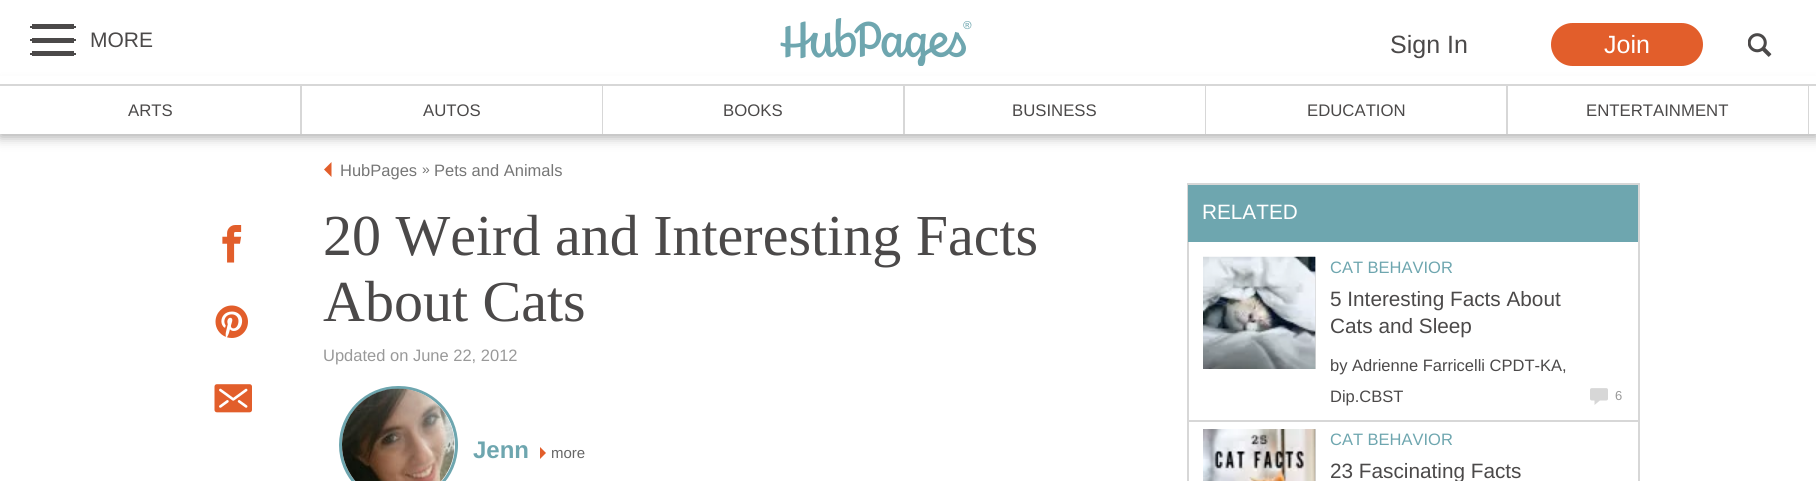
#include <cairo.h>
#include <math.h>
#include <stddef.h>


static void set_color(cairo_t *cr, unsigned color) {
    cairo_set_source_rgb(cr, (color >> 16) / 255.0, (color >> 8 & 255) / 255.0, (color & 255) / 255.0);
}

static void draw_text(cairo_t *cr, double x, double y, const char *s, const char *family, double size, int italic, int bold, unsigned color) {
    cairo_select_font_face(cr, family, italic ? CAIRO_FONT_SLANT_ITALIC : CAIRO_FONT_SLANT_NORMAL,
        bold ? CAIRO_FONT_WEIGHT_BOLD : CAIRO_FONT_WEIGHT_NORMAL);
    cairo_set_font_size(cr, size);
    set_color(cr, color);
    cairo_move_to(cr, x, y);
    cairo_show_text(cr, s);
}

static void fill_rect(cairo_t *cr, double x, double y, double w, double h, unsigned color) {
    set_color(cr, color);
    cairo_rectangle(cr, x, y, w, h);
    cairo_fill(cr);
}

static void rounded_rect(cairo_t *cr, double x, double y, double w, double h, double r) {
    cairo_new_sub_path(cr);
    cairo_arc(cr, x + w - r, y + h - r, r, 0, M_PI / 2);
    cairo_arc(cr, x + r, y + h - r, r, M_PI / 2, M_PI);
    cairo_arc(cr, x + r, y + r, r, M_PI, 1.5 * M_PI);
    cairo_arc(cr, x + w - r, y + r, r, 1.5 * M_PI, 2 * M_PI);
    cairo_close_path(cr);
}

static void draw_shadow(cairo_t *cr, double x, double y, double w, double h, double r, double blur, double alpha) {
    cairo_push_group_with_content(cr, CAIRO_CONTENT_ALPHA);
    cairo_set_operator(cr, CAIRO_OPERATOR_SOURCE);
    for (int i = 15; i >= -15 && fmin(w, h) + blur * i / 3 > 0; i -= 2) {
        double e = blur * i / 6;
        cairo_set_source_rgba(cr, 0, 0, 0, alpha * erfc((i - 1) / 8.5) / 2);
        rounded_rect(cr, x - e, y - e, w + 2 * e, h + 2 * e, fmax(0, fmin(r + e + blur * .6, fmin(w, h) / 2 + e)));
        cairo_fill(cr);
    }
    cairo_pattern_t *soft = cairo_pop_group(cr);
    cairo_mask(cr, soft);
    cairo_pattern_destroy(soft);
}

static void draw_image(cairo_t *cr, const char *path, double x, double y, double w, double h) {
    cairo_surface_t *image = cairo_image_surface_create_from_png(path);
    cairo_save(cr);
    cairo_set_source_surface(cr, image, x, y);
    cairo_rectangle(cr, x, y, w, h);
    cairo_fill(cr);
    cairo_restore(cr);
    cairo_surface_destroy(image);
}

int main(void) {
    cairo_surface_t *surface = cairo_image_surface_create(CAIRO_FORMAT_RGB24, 1816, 481);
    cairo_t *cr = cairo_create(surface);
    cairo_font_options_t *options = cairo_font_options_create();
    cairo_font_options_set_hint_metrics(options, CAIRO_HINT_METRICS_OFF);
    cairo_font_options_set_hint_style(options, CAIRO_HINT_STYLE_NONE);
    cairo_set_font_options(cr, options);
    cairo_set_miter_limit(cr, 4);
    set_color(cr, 0xFFFFFF);
    cairo_paint(cr);
    set_color(cr, 0xAAAAAA);
    draw_shadow(cr, 0, 87, 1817, 50, 0, 6, 1);
    fill_rect(cr, 0, 76, 1816, 8, 0xFFFFFF);
    fill_rect(cr, 0, 84, 1816, 2, 0xD7D7D7);
    fill_rect(cr, 71, 26, 5, 2, 0x4B4949);
    fill_rect(cr, 32, 24, 42, 5, 0x4B4949);
    fill_rect(cr, 30, 26, 5, 2, 0x4B4949);
    fill_rect(cr, 71, 39, 5, 2, 0x4B4949);
    fill_rect(cr, 32, 38, 42, 5, 0x4B4949);
    fill_rect(cr, 30, 39, 5, 2, 0x4B4949);
    fill_rect(cr, 71, 53, 5, 2, 0x4B4949);
    fill_rect(cr, 32, 51, 42, 5, 0x4B4949);
    fill_rect(cr, 30, 53, 5, 2, 0x4B4949);
    draw_text(cr, 90, 47, "MORE", "Liberation Sans", 21, 0, 0, 0x4B4949);
    draw_image(cr, "assets/img1.png", 780, 18, 192, 48);
    draw_text(cr, 1390, 53, "Sign In", "Liberation Sans", 25, 0, 0, 0x4B4949);
    set_color(cr, 0xE25E2B);
    rounded_rect(cr, 1551, 23, 152, 43, 21.5);
    cairo_fill(cr);
    draw_text(cr, 1604, 53, "Join", "Liberation Sans", 25, 0, 0, 0xFFFFFF);
    draw_image(cr, "assets/img2.png", 1748, 33, 24, 24);
    fill_rect(cr, 0, 86, 1808, 48, 0xFFFFFF);
    fill_rect(cr, 300, 86, 2, 48, 0xD7D7D7);
    draw_text(cr, 128, 116, "ARTS", "Liberation Sans", 16.75, 0, 0, 0x4B4949);
    fill_rect(cr, 602, 86, 1, 48, 0xD7D7D7);
    draw_text(cr, 423, 116, "AUTOS", "Liberation Sans", 16.75, 0, 0, 0x4B4949);
    fill_rect(cr, 903, 86, 2, 48, 0xD7D7D7);
    draw_text(cr, 723, 116, "BOOKS", "Liberation Sans", 16.75, 0, 0, 0x4B4949);
    fill_rect(cr, 1205, 86, 1, 48, 0xD7D7D7);
    draw_text(cr, 1012, 116, "BUSINESS", "Liberation Sans", 16.75, 0, 0, 0x4B4949);
    fill_rect(cr, 1506, 86, 2, 48, 0xD7D7D7);
    draw_text(cr, 1307, 116, "EDUCATION", "Liberation Sans", 16.75, 0, 0, 0x4B4949);
    fill_rect(cr, 1808, 86, 1, 48, 0xD7D7D7);
    draw_text(cr, 1586, 116, "ENTERTAINMENT", "Liberation Sans", 16.75, 0, 0, 0x4B4949);
    fill_rect(cr, 1809, 86, 7, 48, 0xFFFFFF);
    draw_image(cr, "assets/img3.png", 222, 225, 20, 38);
    draw_image(cr, "assets/img4.png", 215, 305, 33, 33);
    draw_image(cr, "assets/img5.png", 214, 384, 38, 29);
    set_color(cr, 0xE25E2B);
    cairo_new_path(cr);
    cairo_move_to(cr, 331.5, 162);
    cairo_line_to(cr, 331.5, 177);
    cairo_line_to(cr, 324, 169.5);
    cairo_close_path(cr);
    cairo_fill(cr);
    draw_text(cr, 340, 176, "HubPages", "Liberation Sans", 16.5, 0, 0, 0x767676);
    draw_text(cr, 422, 174, "»", "Liberation Sans", 14, 0, 0, 0x767676);
    draw_text(cr, 434, 176, "Pets and Animals", "Liberation Sans", 16.5, 0, 0, 0x767676);
    draw_text(cr, 323, 255, "20 Weird and Interesting Facts", "Liberation Serif", 58, 0, 0, 0x4B4949);
    draw_text(cr, 323, 321, "About Cats", "Liberation Serif", 58, 0, 0, 0x4B4949);
    draw_text(cr, 323, 361, "Updated on June 22, 2012", "Liberation Sans", 16.5, 0, 0, 0x999999);
    rounded_rect(cr, 340.5, 387.5, 116, 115, 57.5);
    set_color(cr, 0x6EA6AF);
    cairo_set_line_width(cr, 3);
    cairo_stroke(cr);
    draw_image(cr, "assets/img6.png", 342, 388, 113, 93);
    draw_text(cr, 473, 458, "Jenn", "Liberation Sans", 24, 0, 1, 0x6EA6AF);
    set_color(cr, 0xE25E2B);
    cairo_new_path(cr);
    cairo_move_to(cr, 540, 459);
    cairo_line_to(cr, 540, 447);
    cairo_line_to(cr, 546, 453);
    cairo_close_path(cr);
    cairo_fill(cr);
    draw_text(cr, 551, 458, "more", "Liberation Sans", 15, 0, 0, 0x666666);
    cairo_rectangle(cr, 1188, 184, 451, 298);
    set_color(cr, 0xD7D7D7);
    cairo_set_line_width(cr, 2);
    cairo_stroke(cr);
    fill_rect(cr, 1188, 185, 450, 57, 0x6EA6AF);
    draw_text(cr, 1202, 219, "RELATED", "Liberation Sans", 20.75, 0, 0, 0xFFFFFF);
    fill_rect(cr, 1188, 420, 450, 2, 0xD7D7D7);
    fill_rect(cr, 1315, 257, 1, 112, 0xD7D7D7);
    draw_image(cr, "assets/img7.png", 1203, 256, 113, 113);
    draw_text(cr, 1330, 273, "CAT BEHAVIOR", "Liberation Sans", 16.5, 0, 0, 0x6EA6AF);
    draw_text(cr, 1330, 306, "5 Interesting Facts About", "Liberation Sans", 20.75, 0, 0, 0x4B4949);
    draw_text(cr, 1330, 333, "Cats and Sleep", "Liberation Sans", 20.75, 0, 0, 0x4B4949);
    draw_text(cr, 1330, 371, "by Adrienne Farricelli CPDT-KA,", "Liberation Sans", 16.5, 0, 0, 0x4B4949);
    draw_text(cr, 1330, 402, "Dip.CBST", "Liberation Sans", 16.5, 0, 0, 0x4B4949);
    draw_image(cr, "assets/img8.png", 1590, 388, 18, 17);
    draw_text(cr, 1615, 400, "6", "Liberation Sans", 13, 0, 0, 0x999999);
    fill_rect(cr, 1315, 429, 1, 52, 0xD7D7D7);
    draw_image(cr, "assets/img9.png", 1203, 429, 113, 52);
    draw_text(cr, 1330, 445, "CAT BEHAVIOR", "Liberation Sans", 16.5, 0, 0, 0x6EA6AF);
    draw_text(cr, 1330, 478, "23 Fascinating Facts", "Liberation Sans", 20.75, 0, 0, 0x4B4949);
    cairo_surface_write_to_png(surface, "output.png");
    cairo_font_options_destroy(options);
    cairo_destroy(cr);
    cairo_surface_destroy(surface);
    return 0;
}
